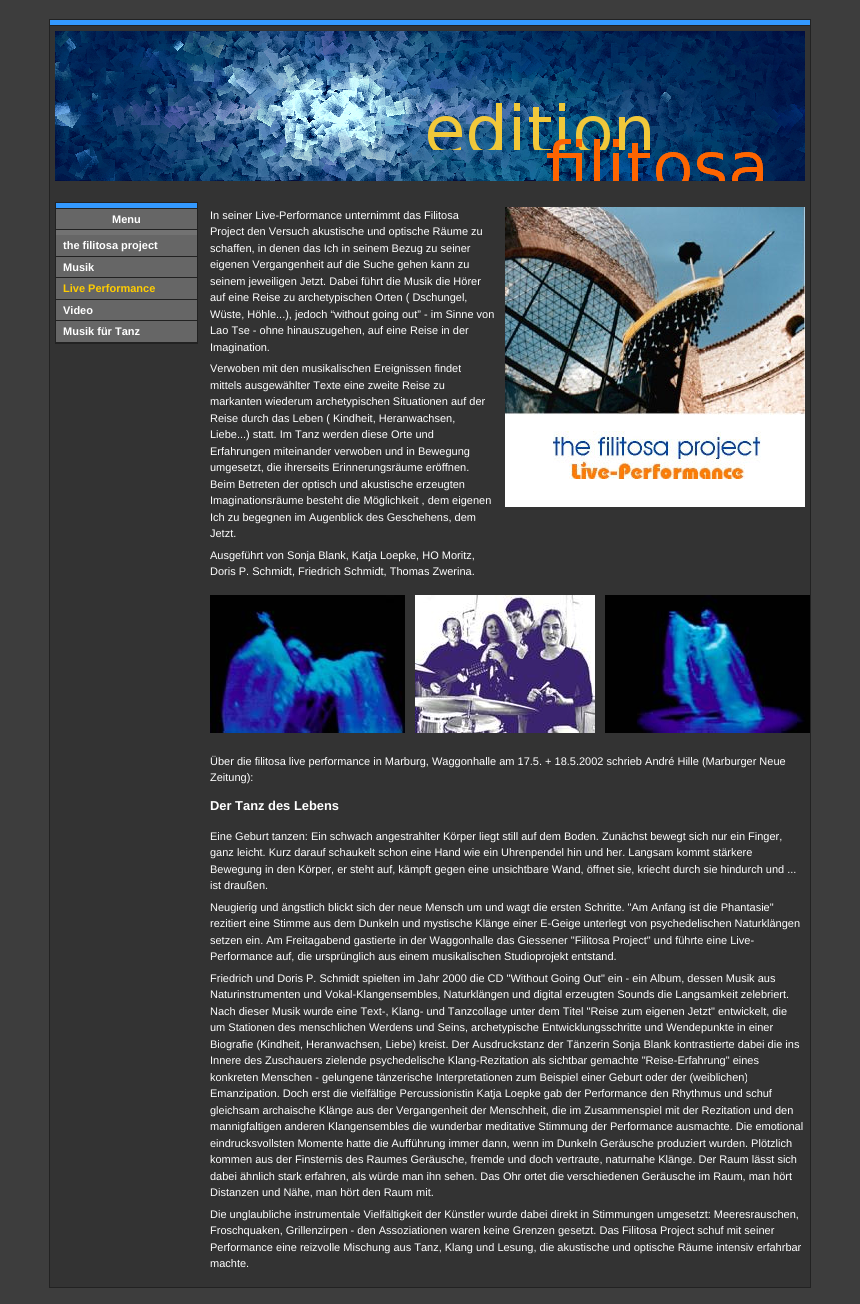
#include <cairo.h>
#include <math.h>
#include <stddef.h>


static void set_color(cairo_t *cr, unsigned color) {
    cairo_set_source_rgb(cr, (color >> 16) / 255.0, (color >> 8 & 255) / 255.0, (color & 255) / 255.0);
}

static void draw_text(cairo_t *cr, double x, double y, const char *s, const char *family, double size, int italic, int bold, unsigned color) {
    cairo_select_font_face(cr, family, italic ? CAIRO_FONT_SLANT_ITALIC : CAIRO_FONT_SLANT_NORMAL,
        bold ? CAIRO_FONT_WEIGHT_BOLD : CAIRO_FONT_WEIGHT_NORMAL);
    cairo_set_font_size(cr, size);
    set_color(cr, color);
    cairo_move_to(cr, x, y);
    cairo_show_text(cr, s);
}

static void fill_rect(cairo_t *cr, double x, double y, double w, double h, unsigned color) {
    set_color(cr, color);
    cairo_rectangle(cr, x, y, w, h);
    cairo_fill(cr);
}

static void draw_image(cairo_t *cr, const char *path, double x, double y, double w, double h) {
    cairo_surface_t *image = cairo_image_surface_create_from_png(path);
    cairo_save(cr);
    cairo_set_source_surface(cr, image, x, y);
    cairo_rectangle(cr, x, y, w, h);
    cairo_fill(cr);
    cairo_restore(cr);
    cairo_surface_destroy(image);
}

int main(void) {
    cairo_surface_t *surface = cairo_image_surface_create(CAIRO_FORMAT_RGB24, 860, 1304);
    cairo_t *cr = cairo_create(surface);
    cairo_font_options_t *options = cairo_font_options_create();
    cairo_font_options_set_hint_metrics(options, CAIRO_HINT_METRICS_OFF);
    cairo_font_options_set_hint_style(options, CAIRO_HINT_STYLE_NONE);
    cairo_set_font_options(cr, options);
    cairo_set_miter_limit(cr, 4);
    set_color(cr, 0x3D3D3D);
    cairo_paint(cr);
    fill_rect(cr, 50, 26, 760, 1261, 0x333333);
    cairo_rectangle(cr, 49.5, 19.5, 761, 1268);
    set_color(cr, 0x222222);
    cairo_set_line_width(cr, 1);
    cairo_stroke(cr);
    fill_rect(cr, 50, 20, 760, 5, 0x3399FF);
    fill_rect(cr, 50, 25, 760, 1, 0x222222);
    draw_image(cr, "assets/img1.png", 55, 31, 750, 150);
    fill_rect(cr, 56, 230, 141, 5, 0x727272);
    cairo_rectangle(cr, 55.5, 202.5, 142, 141);
    set_color(cr, 0x222222);
    cairo_stroke(cr);
    fill_rect(cr, 56, 203, 141, 5, 0x3399FF);
    fill_rect(cr, 56, 208, 141, 1, 0x222222);
    fill_rect(cr, 56, 209, 141, 20, 0x666666);
    fill_rect(cr, 56, 229, 141, 1, 0x222222);
    draw_text(cr, 112, 223, "Menu", "Liberation Sans", 11, 0, 1, 0xFFFFFF);
    fill_rect(cr, 56, 235, 141, 21, 0x666666);
    fill_rect(cr, 56, 256, 141, 1, 0x222222);
    draw_text(cr, 63, 249, "the filitosa project", "Liberation Sans", 11, 0, 1, 0xFFFFFF);
    fill_rect(cr, 56, 257, 141, 20, 0x666666);
    fill_rect(cr, 56, 277, 141, 1, 0x222222);
    draw_text(cr, 63, 271, "Musik", "Liberation Sans", 11, 0, 1, 0xFFFFFF);
    fill_rect(cr, 56, 278, 141, 21, 0x666666);
    fill_rect(cr, 56, 299, 141, 1, 0x222222);
    draw_text(cr, 63, 292, "Live Performance", "Liberation Sans", 11, 0, 1, 0xFFCC00);
    fill_rect(cr, 56, 300, 141, 20, 0x666666);
    fill_rect(cr, 56, 320, 141, 1, 0x222222);
    draw_text(cr, 63, 314, "Video", "Liberation Sans", 11, 0, 1, 0xFFFFFF);
    fill_rect(cr, 56, 321, 141, 21, 0x666666);
    fill_rect(cr, 56, 342, 141, 1, 0x222222);
    draw_text(cr, 63, 335, "Musik für Tanz", "Liberation Sans", 11, 0, 1, 0xFFFFFF);
    draw_text(cr, 210, 219, "In seiner Live-Performance unternimmt das Filitosa", "Liberation Sans", 11, 0, 0, 0xFFFFFF);
    draw_text(cr, 210, 235, "Project den Versuch akustische und optische Räume zu", "Liberation Sans", 11, 0, 0, 0xFFFFFF);
    draw_text(cr, 210, 252, "schaffen, in denen das Ich in seinem Bezug zu seiner", "Liberation Sans", 11, 0, 0, 0xFFFFFF);
    draw_text(cr, 210, 268, "eigenen Vergangenheit auf die Suche gehen kann zu", "Liberation Sans", 11, 0, 0, 0xFFFFFF);
    draw_text(cr, 210, 285, "seinem jeweiligen Jetzt. Dabei führt die Musik die Hörer", "Liberation Sans", 11, 0, 0, 0xFFFFFF);
    draw_text(cr, 210, 301, "auf eine Reise zu archetypischen Orten ( Dschungel,", "Liberation Sans", 11, 0, 0, 0xFFFFFF);
    draw_text(cr, 210, 318, "Wüste, Höhle...), jedoch “without going out” - im Sinne von", "Liberation Sans", 11, 0, 0, 0xFFFFFF);
    draw_text(cr, 210, 334, "Lao Tse - ohne hinauszugehen, auf eine Reise in der", "Liberation Sans", 11, 0, 0, 0xFFFFFF);
    draw_text(cr, 210, 351, "Imagination.", "Liberation Sans", 11, 0, 0, 0xFFFFFF);
    draw_text(cr, 210, 372, "Verwoben mit den musikalischen Ereignissen findet", "Liberation Sans", 11, 0, 0, 0xFFFFFF);
    draw_text(cr, 210, 389, "mittels ausgewählter Texte eine zweite Reise zu", "Liberation Sans", 11, 0, 0, 0xFFFFFF);
    draw_text(cr, 210, 405, "markanten wiederum archetypischen Situationen auf der", "Liberation Sans", 11, 0, 0, 0xFFFFFF);
    draw_text(cr, 210, 422, "Reise durch das Leben ( Kindheit, Heranwachsen,", "Liberation Sans", 11, 0, 0, 0xFFFFFF);
    draw_text(cr, 210, 438, "Liebe...) statt. Im Tanz werden diese Orte und", "Liberation Sans", 11, 0, 0, 0xFFFFFF);
    draw_text(cr, 210, 455, "Erfahrungen miteinander verwoben und in Bewegung", "Liberation Sans", 11, 0, 0, 0xFFFFFF);
    draw_text(cr, 210, 471, "umgesetzt, die ihrerseits Erinnerungsräume eröffnen.", "Liberation Sans", 11, 0, 0, 0xFFFFFF);
    draw_text(cr, 210, 488, "Beim Betreten der optisch und akustische erzeugten", "Liberation Sans", 11, 0, 0, 0xFFFFFF);
    draw_text(cr, 210, 504, "Imaginationsräume besteht die Möglichkeit , dem eigenen", "Liberation Sans", 11, 0, 0, 0xFFFFFF);
    draw_text(cr, 210, 521, "Ich zu begegnen im Augenblick des Geschehens, dem", "Liberation Sans", 11, 0, 0, 0xFFFFFF);
    draw_text(cr, 210, 537, "Jetzt.", "Liberation Sans", 11, 0, 0, 0xFFFFFF);
    draw_text(cr, 210, 559, "Ausgeführt von Sonja Blank, Katja Loepke, HO Moritz,", "Liberation Sans", 11, 0, 0, 0xFFFFFF);
    draw_text(cr, 210, 575, "Doris P. Schmidt, Friedrich Schmidt, Thomas Zwerina.", "Liberation Sans", 11, 0, 0, 0xFFFFFF);
    draw_image(cr, "assets/img2.png", 505, 207, 300, 300);
    draw_image(cr, "assets/img3.png", 210, 595, 195, 138);
    draw_image(cr, "assets/img4.png", 415, 595, 180, 138);
    draw_image(cr, "assets/img5.png", 605, 595, 205, 138);
    draw_text(cr, 210, 765, "Über die filitosa live performance in Marburg, Waggonhalle am 17.5. + 18.5.2002 schrieb André Hille (Marburger Neue", "Liberation Sans", 11, 0, 0, 0xFFFFFF);
    draw_text(cr, 210, 781, "Zeitung):", "Liberation Sans", 11, 0, 0, 0xFFFFFF);
    draw_text(cr, 210, 810, "Der Tanz des Lebens", "Liberation Sans", 12.9, 0, 1, 0xFFFFFF);
    draw_text(cr, 210, 840, "Eine Geburt tanzen: Ein schwach angestrahlter Körper liegt still auf dem Boden. Zunächst bewegt sich nur ein Finger,", "Liberation Sans", 11, 0, 0, 0xFFFFFF);
    draw_text(cr, 210, 856, "ganz leicht. Kurz darauf schaukelt schon eine Hand wie ein Uhrenpendel hin und her. Langsam kommt stärkere", "Liberation Sans", 11, 0, 0, 0xFFFFFF);
    draw_text(cr, 210, 873, "Bewegung in den Körper, er steht auf, kämpft gegen eine unsichtbare Wand, öffnet sie, kriecht durch sie hindurch und ...", "Liberation Sans", 11, 0, 0, 0xFFFFFF);
    draw_text(cr, 210, 889, "ist draußen.", "Liberation Sans", 11, 0, 0, 0xFFFFFF);
    draw_text(cr, 210, 911, "Neugierig und ängstlich blickt sich der neue Mensch um und wagt die ersten Schritte. \"Am Anfang ist die Phantasie\"", "Liberation Sans", 11, 0, 0, 0xFFFFFF);
    draw_text(cr, 210, 927, "rezitiert eine Stimme aus dem Dunkeln und mystische Klänge einer E-Geige unterlegt von psychedelischen Naturklängen", "Liberation Sans", 11, 0, 0, 0xFFFFFF);
    draw_text(cr, 210, 944, "setzen ein. Am Freitagabend gastierte in der Waggonhalle das Giessener \"Filitosa Project\" und führte eine Live-", "Liberation Sans", 11, 0, 0, 0xFFFFFF);
    draw_text(cr, 210, 960, "Performance auf, die ursprünglich aus einem musikalischen Studioprojekt entstand.", "Liberation Sans", 11, 0, 0, 0xFFFFFF);
    draw_text(cr, 210, 982, "Friedrich und Doris P. Schmidt spielten im Jahr 2000 die CD \"Without Going Out\" ein - ein Album, dessen Musik aus", "Liberation Sans", 11, 0, 0, 0xFFFFFF);
    draw_text(cr, 210, 998, "Naturinstrumenten und Vokal-Klangensembles, Naturklängen und digital erzeugten Sounds die Langsamkeit zelebriert.", "Liberation Sans", 11, 0, 0, 0xFFFFFF);
    draw_text(cr, 210, 1015, "Nach dieser Musik wurde eine Text-, Klang- und Tanzcollage unter dem Titel \"Reise zum eigenen Jetzt\" entwickelt, die", "Liberation Sans", 11, 0, 0, 0xFFFFFF);
    draw_text(cr, 210, 1031, "um Stationen des menschlichen Werdens und Seins, archetypische Entwicklungsschritte und Wendepunkte in einer", "Liberation Sans", 11, 0, 0, 0xFFFFFF);
    draw_text(cr, 210, 1048, "Biografie (Kindheit, Heranwachsen, Liebe) kreist. Der Ausdruckstanz der Tänzerin Sonja Blank kontrastierte dabei die ins", "Liberation Sans", 11, 0, 0, 0xFFFFFF);
    draw_text(cr, 210, 1064, "Innere des Zuschauers zielende psychedelische Klang-Rezitation als sichtbar gemachte \"Reise-Erfahrung\" eines", "Liberation Sans", 11, 0, 0, 0xFFFFFF);
    draw_text(cr, 210, 1081, "konkreten Menschen - gelungene tänzerische Interpretationen zum Beispiel einer Geburt oder der (weiblichen)", "Liberation Sans", 11, 0, 0, 0xFFFFFF);
    draw_text(cr, 210, 1097, "Emanzipation. Doch erst die vielfältige Percussionistin Katja Loepke gab der Performance den Rhythmus und schuf", "Liberation Sans", 11, 0, 0, 0xFFFFFF);
    draw_text(cr, 210, 1114, "gleichsam archaische Klänge aus der Vergangenheit der Menschheit, die im Zusammenspiel mit der Rezitation und den", "Liberation Sans", 11, 0, 0, 0xFFFFFF);
    draw_text(cr, 210, 1130, "mannigfaltigen anderen Klangensembles die wunderbar meditative Stimmung der Performance ausmachte. Die emotional", "Liberation Sans", 11, 0, 0, 0xFFFFFF);
    draw_text(cr, 210, 1147, "eindrucksvollsten Momente hatte die Aufführung immer dann, wenn im Dunkeln Geräusche produziert wurden. Plötzlich", "Liberation Sans", 11, 0, 0, 0xFFFFFF);
    draw_text(cr, 210, 1163, "kommen aus der Finsternis des Raumes Geräusche, fremde und doch vertraute, naturnahe Klänge. Der Raum lässt sich", "Liberation Sans", 11, 0, 0, 0xFFFFFF);
    draw_text(cr, 210, 1180, "dabei ähnlich stark erfahren, als würde man ihn sehen. Das Ohr ortet die verschiedenen Geräusche im Raum, man hört", "Liberation Sans", 11, 0, 0, 0xFFFFFF);
    draw_text(cr, 210, 1196, "Distanzen und Nähe, man hört den Raum mit.", "Liberation Sans", 11, 0, 0, 0xFFFFFF);
    draw_text(cr, 210, 1218, "Die unglaubliche instrumentale Vielfältigkeit der Künstler wurde dabei direkt in Stimmungen umgesetzt: Meeresrauschen,", "Liberation Sans", 11, 0, 0, 0xFFFFFF);
    draw_text(cr, 210, 1234, "Froschquaken, Grillenzirpen - den Assoziationen waren keine Grenzen gesetzt. Das Filitosa Project schuf mit seiner", "Liberation Sans", 11, 0, 0, 0xFFFFFF);
    draw_text(cr, 210, 1251, "Performance eine reizvolle Mischung aus Tanz, Klang und Lesung, die akustische und optische Räume intensiv erfahrbar", "Liberation Sans", 11, 0, 0, 0xFFFFFF);
    draw_text(cr, 210, 1267, "machte.", "Liberation Sans", 11, 0, 0, 0xFFFFFF);
    cairo_surface_write_to_png(surface, "output.png");
    cairo_font_options_destroy(options);
    cairo_destroy(cr);
    cairo_surface_destroy(surface);
    return 0;
}
